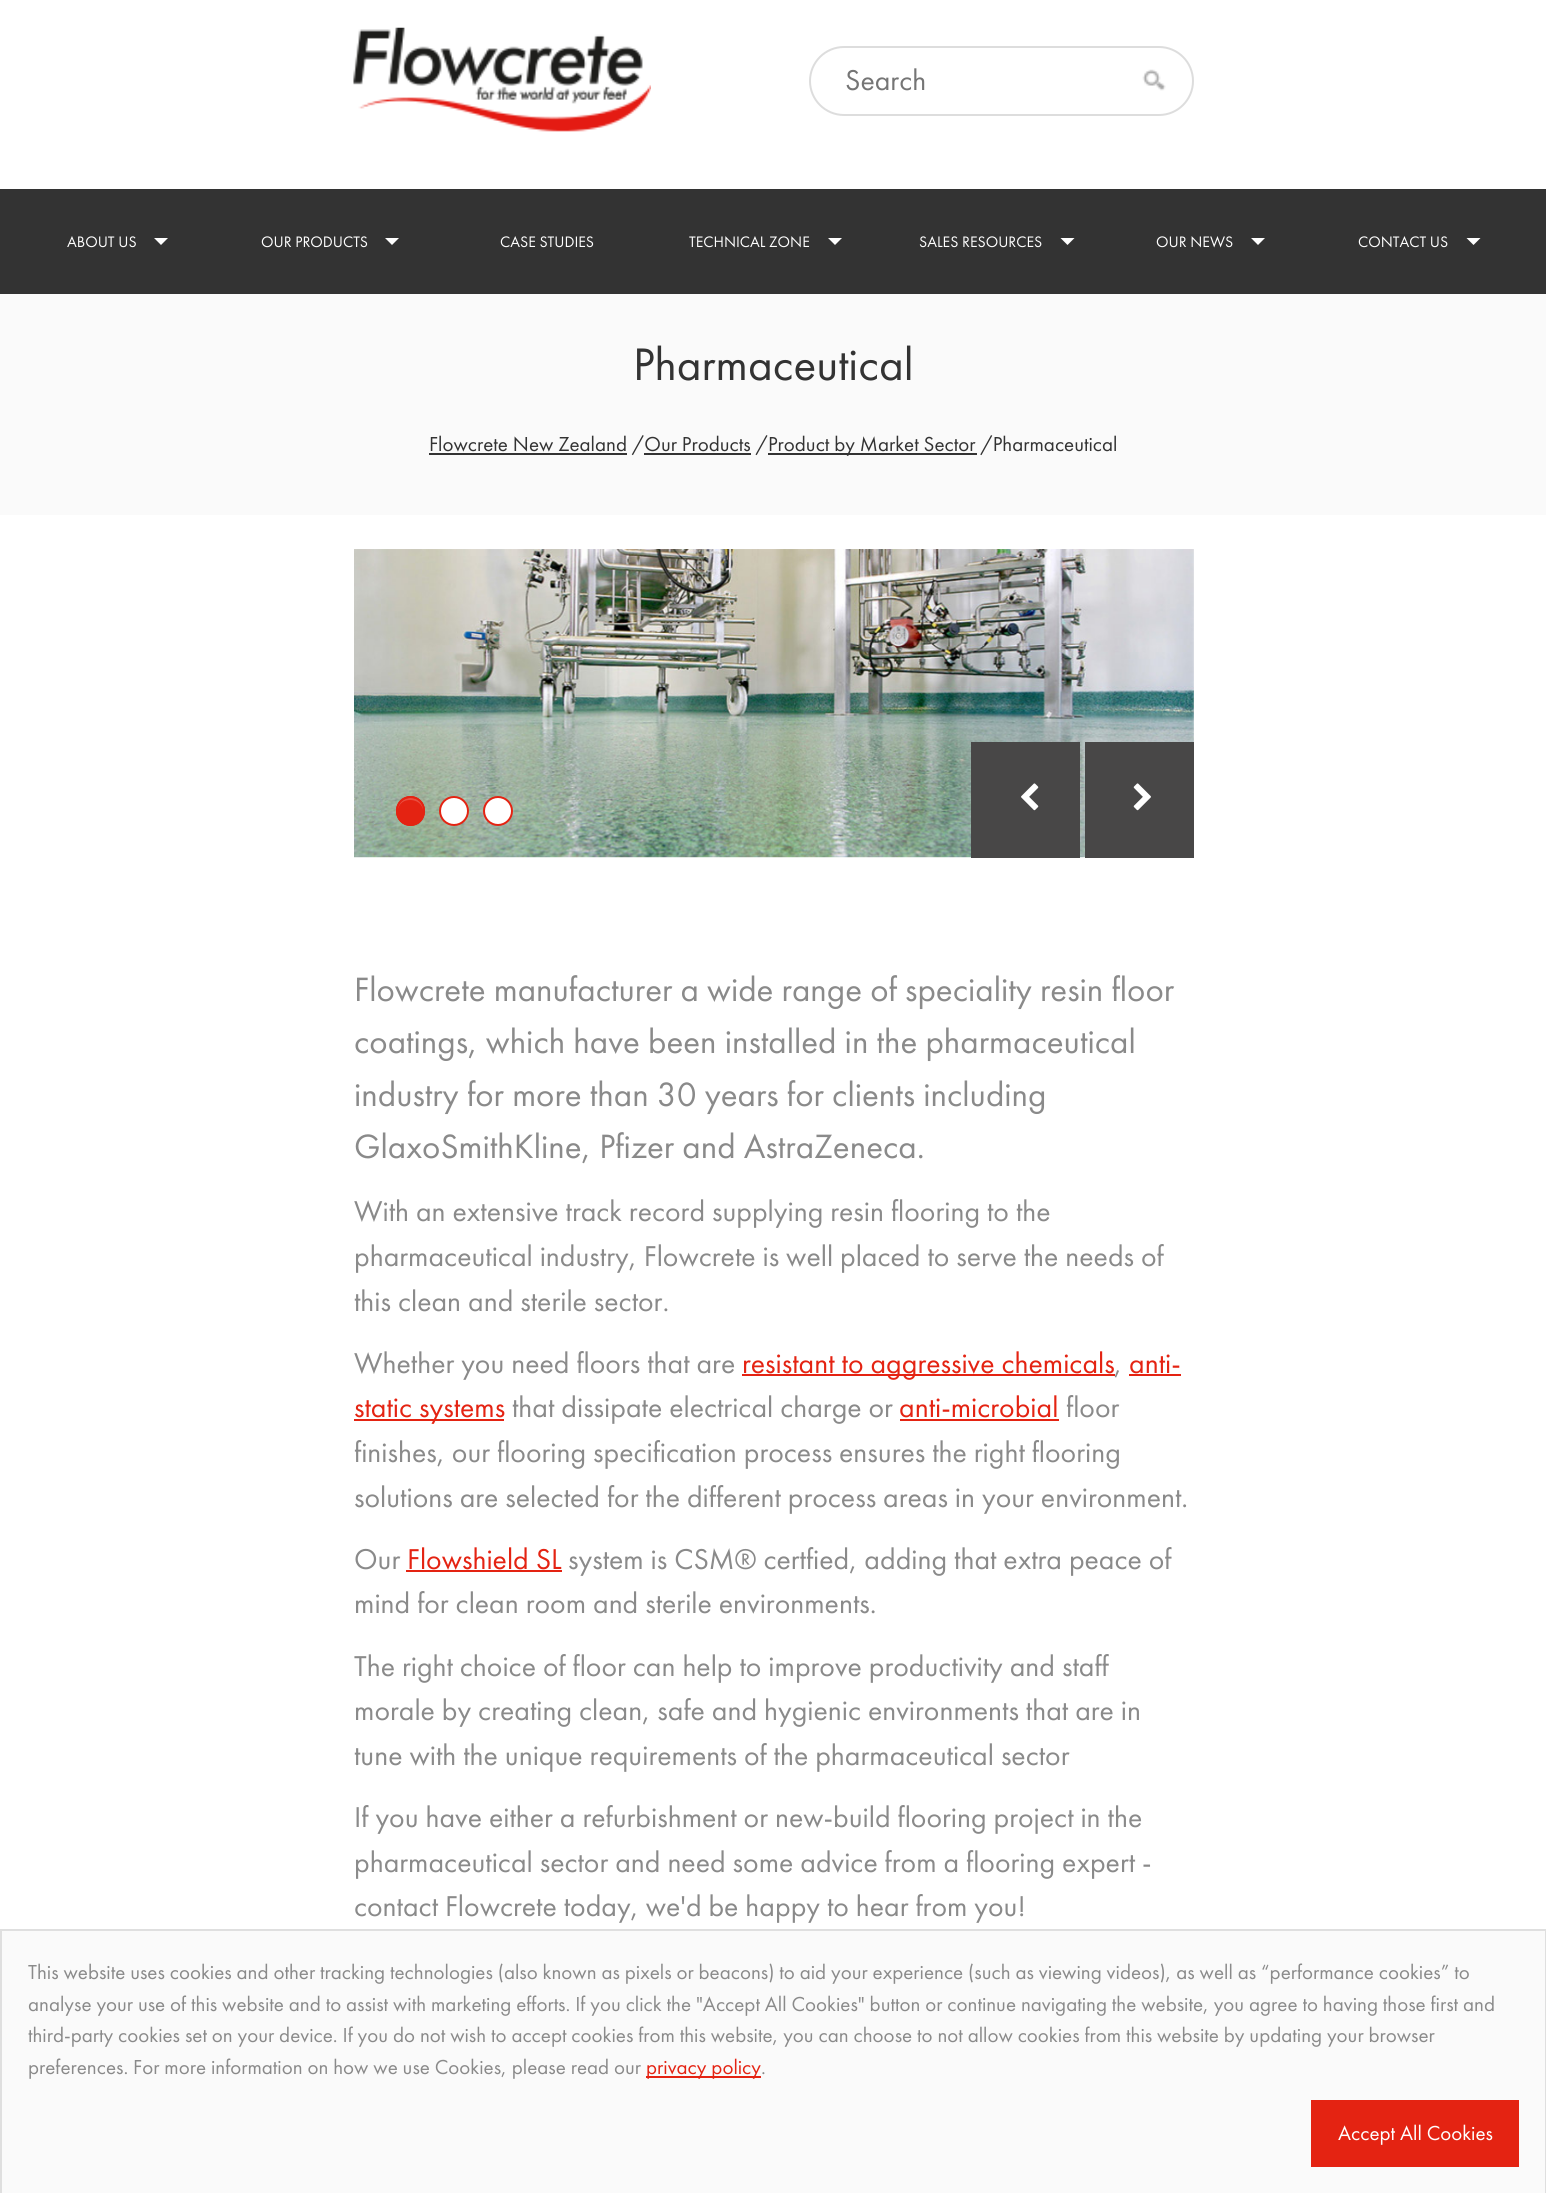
#include <cairo.h>
#include <math.h>
#include <stddef.h>


static void set_color(cairo_t *cr, unsigned color) {
    cairo_set_source_rgb(cr, (color >> 16) / 255.0, (color >> 8 & 255) / 255.0, (color & 255) / 255.0);
}

static void draw_text(cairo_t *cr, double x, double y, const char *s, const char *family, double size, int italic, int bold, unsigned color) {
    cairo_select_font_face(cr, family, italic ? CAIRO_FONT_SLANT_ITALIC : CAIRO_FONT_SLANT_NORMAL,
        bold ? CAIRO_FONT_WEIGHT_BOLD : CAIRO_FONT_WEIGHT_NORMAL);
    cairo_set_font_size(cr, size);
    set_color(cr, color);
    cairo_move_to(cr, x, y);
    cairo_show_text(cr, s);
}

static void fill_rect(cairo_t *cr, double x, double y, double w, double h, unsigned color) {
    set_color(cr, color);
    cairo_rectangle(cr, x, y, w, h);
    cairo_fill(cr);
}

static void rounded_rect(cairo_t *cr, double x, double y, double w, double h, double r) {
    cairo_new_sub_path(cr);
    cairo_arc(cr, x + w - r, y + h - r, r, 0, M_PI / 2);
    cairo_arc(cr, x + r, y + h - r, r, M_PI / 2, M_PI);
    cairo_arc(cr, x + r, y + r, r, M_PI, 1.5 * M_PI);
    cairo_arc(cr, x + w - r, y + r, r, 1.5 * M_PI, 2 * M_PI);
    cairo_close_path(cr);
}

static void draw_image(cairo_t *cr, const char *path, double x, double y, double w, double h) {
    cairo_surface_t *image = cairo_image_surface_create_from_png(path);
    cairo_save(cr);
    cairo_set_source_surface(cr, image, x, y);
    cairo_rectangle(cr, x, y, w, h);
    cairo_fill(cr);
    cairo_restore(cr);
    cairo_surface_destroy(image);
}

int main(void) {
    cairo_surface_t *surface = cairo_image_surface_create(CAIRO_FORMAT_RGB24, 1546, 2193);
    cairo_t *cr = cairo_create(surface);
    cairo_font_options_t *options = cairo_font_options_create();
    cairo_font_options_set_hint_metrics(options, CAIRO_HINT_METRICS_OFF);
    cairo_font_options_set_hint_style(options, CAIRO_HINT_STYLE_NONE);
    cairo_set_font_options(cr, options);
    cairo_set_miter_limit(cr, 4);
    set_color(cr, 0xFFFFFF);
    cairo_paint(cr);
    draw_image(cr, "assets/img1.png", 353, 27, 298, 105);
    draw_image(cr, "assets/img2.png", 1142, 69, 24, 22);
    rounded_rect(cr, 810, 47, 383, 68, 34);
    set_color(cr, 0xDDDDDD);
    cairo_stroke(cr);
    draw_text(cr, 845, 90, "Search", "Futura PT", 29.75, 0, 0, 0x757575);
    fill_rect(cr, 0, 189, 1546, 105, 0x333333);
    draw_text(cr, 67, 247, "ABOUT US", "Futura PT", 15.75, 0, 0, 0xFFFFFF);
    cairo_new_path(cr);
    cairo_move_to(cr, 154, 238);
    cairo_line_to(cr, 168, 238);
    cairo_line_to(cr, 161, 245);
    cairo_close_path(cr);
    cairo_fill(cr);
    draw_text(cr, 261, 247, "OUR PRODUCTS", "Futura PT", 15.75, 0, 0, 0xFFFFFF);
    cairo_new_path(cr);
    cairo_move_to(cr, 385, 238);
    cairo_line_to(cr, 399, 238);
    cairo_line_to(cr, 392, 245);
    cairo_close_path(cr);
    cairo_fill(cr);
    draw_text(cr, 500, 247, "CASE STUDIES", "Futura PT", 15.75, 0, 0, 0xFFFFFF);
    draw_text(cr, 689, 247, "TECHNICAL ZONE", "Futura PT", 15.75, 0, 0, 0xFFFFFF);
    cairo_new_path(cr);
    cairo_move_to(cr, 828, 238);
    cairo_line_to(cr, 842, 238);
    cairo_line_to(cr, 835, 245);
    cairo_close_path(cr);
    cairo_fill(cr);
    draw_text(cr, 919, 247, "SALES RESOURCES", "Futura PT", 15.75, 0, 0, 0xFFFFFF);
    cairo_new_path(cr);
    cairo_move_to(cr, 1060.5, 238);
    cairo_line_to(cr, 1074.5, 238);
    cairo_line_to(cr, 1067.5, 245);
    cairo_close_path(cr);
    cairo_fill(cr);
    draw_text(cr, 1156, 247, "OUR NEWS", "Futura PT", 15.75, 0, 0, 0xFFFFFF);
    cairo_new_path(cr);
    cairo_move_to(cr, 1251, 238);
    cairo_line_to(cr, 1265, 238);
    cairo_line_to(cr, 1258, 245);
    cairo_close_path(cr);
    cairo_fill(cr);
    draw_text(cr, 1358, 247, "CONTACT US", "Futura PT", 15.75, 0, 0, 0xFFFFFF);
    cairo_new_path(cr);
    cairo_move_to(cr, 1466.5, 238);
    cairo_line_to(cr, 1480.5, 238);
    cairo_line_to(cr, 1473.5, 245);
    cairo_close_path(cr);
    cairo_fill(cr);
    fill_rect(cr, 0, 294, 1546, 221, 0xFAFAFA);
    draw_text(cr, 633, 380, "Pharmaceutical", "Futura PT", 47.25, 0, 0, 0x333333);
    fill_rect(cr, 429, 453, 198, 2, 0x333333);
    draw_text(cr, 429, 451, "Flowcrete New Zealand /Our Products /", "Futura PT", 21, 0, 0, 0x333333);
    fill_rect(cr, 768, 453, 209, 2, 0x333333);
    draw_text(cr, 768, 451, "Product by Market Sector /Pharmaceutical", "Futura PT", 21, 0, 0, 0x333333);
    fill_rect(cr, 644, 453, 107, 2, 0x333333);
    draw_image(cr, "assets/img3.png", 354, 549, 840, 309);
    set_color(cr, 0xE42312);
    rounded_rect(cr, 396, 796, 29, 30, 14.5);
    cairo_fill(cr);
    set_color(cr, 0xE94F41);
    cairo_new_path(cr);
    cairo_move_to(cr, 410, 800);
    cairo_curve_to(cr, 420, 800, 424.5, 808, 423.5, 815);
    cairo_curve_to(cr, 424.5, 812, 424, 809, 423, 806);
    cairo_curve_to(cr, 417, 791.5, 394, 798, 397.5, 813.5);
    cairo_curve_to(cr, 397, 807, 401, 800, 410, 800);
    cairo_close_path(cr);
    cairo_fill(cr);
    rounded_rect(cr, 397, 797, 27, 28, 13.5);
    set_color(cr, 0xE42312);
    cairo_stroke(cr);
    set_color(cr, 0xFFFFFF);
    cairo_arc(cr, 454, 811, 14, 0, 2 * M_PI);
    cairo_fill_preserve(cr);
    set_color(cr, 0xE42312);
    cairo_stroke(cr);
    set_color(cr, 0xFFFFFF);
    cairo_arc(cr, 498, 811, 14, 0, 2 * M_PI);
    cairo_fill_preserve(cr);
    set_color(cr, 0xE42312);
    cairo_stroke(cr);
    fill_rect(cr, 971, 742, 109, 116, 0x484747);
    draw_image(cr, "assets/img4.png", 1021, 783, 18, 28);
    fill_rect(cr, 1085, 742, 109, 116, 0x484747);
    draw_image(cr, "assets/img5.png", 1133, 783, 18, 28);
    draw_text(cr, 354, 1001, "Flowcrete manufacturer a wide range of speciality resin floor", "Futura PT", 35, 0, 0, 0x8A8A8A);
    draw_text(cr, 354, 1053, "coatings, which have been installed in the pharmaceutical", "Futura PT", 35, 0, 0, 0x8A8A8A);
    draw_text(cr, 354, 1106, "industry for more than 30 years for clients including", "Futura PT", 35, 0, 0, 0x8A8A8A);
    draw_text(cr, 354, 1158, "GlaxoSmithKline, Pfizer and AstraZeneca.", "Futura PT", 35, 0, 0, 0x8A8A8A);
    draw_text(cr, 354, 1221, "With an extensive track record supplying resin flooring to the", "Futura PT", 29.75, 0, 0, 0x8A8A8A);
    draw_text(cr, 354, 1266, "pharmaceutical industry, Flowcrete is well placed to serve the needs of", "Futura PT", 29.75, 0, 0, 0x8A8A8A);
    draw_text(cr, 354, 1311, "this clean and sterile sector.", "Futura PT", 29.75, 0, 0, 0x8A8A8A);
    draw_text(cr, 354, 1373, "Whether you need floors that are", "Futura PT", 29.75, 0, 0, 0x8A8A8A);
    fill_rect(cr, 742, 1374, 373, 2, 0xE42312);
    draw_text(cr, 742, 1373, "resistant to aggressive chemicals", "Futura PT", 29.75, 0, 0, 0xE42312);
    draw_text(cr, 1114, 1373, ",", "Futura PT", 29.75, 0, 0, 0x8A8A8A);
    draw_text(cr, 1129, 1373, "anti-", "Futura PT", 29.75, 0, 0, 0xE42312);
    fill_rect(cr, 1129, 1374, 52, 2, 0xE42312);
    fill_rect(cr, 354, 1419, 150, 2, 0xE42312);
    draw_text(cr, 354, 1417, "static systems", "Futura PT", 29.75, 0, 0, 0xE42312);
    draw_text(cr, 512, 1417, "that dissipate electrical charge or", "Futura PT", 29.75, 0, 0, 0x8A8A8A);
    draw_text(cr, 899, 1417, "anti-microbial", "Futura PT", 29.75, 0, 0, 0xE42312);
    fill_rect(cr, 900, 1419, 159, 2, 0xE42312);
    draw_text(cr, 1066, 1417, "floor", "Futura PT", 29.75, 0, 0, 0x8A8A8A);
    draw_text(cr, 354, 1462, "finishes, our flooring specification process ensures the right flooring", "Futura PT", 29.75, 0, 0, 0x8A8A8A);
    draw_text(cr, 354, 1507, "solutions are selected for the different process areas in your environment.", "Futura PT", 29.75, 0, 0, 0x8A8A8A);
    draw_text(cr, 354, 1569, "Our", "Futura PT", 29.75, 0, 0, 0x8A8A8A);
    draw_text(cr, 407, 1569, "Flowshield SL", "Futura PT", 29.75, 0, 0, 0xE42312);
    fill_rect(cr, 406, 1570, 156, 2, 0xE42312);
    draw_text(cr, 568, 1569, "system is CSM® certfied, adding that extra peace of", "Futura PT", 29.75, 0, 0, 0x8A8A8A);
    draw_text(cr, 354, 1613, "mind for clean room and sterile environments.", "Futura PT", 29.75, 0, 0, 0x8A8A8A);
    draw_text(cr, 354, 1676, "The right choice of floor can help to improve productivity and staff", "Futura PT", 29.75, 0, 0, 0x8A8A8A);
    draw_text(cr, 354, 1720, "morale by creating clean, safe and hygienic environments that are in", "Futura PT", 29.75, 0, 0, 0x8A8A8A);
    draw_text(cr, 354, 1765, "tune with the unique requirements of the pharmaceutical sector", "Futura PT", 29.75, 0, 0, 0x8A8A8A);
    draw_text(cr, 354, 1827, "If you have either a refurbishment or new-build flooring project in the", "Futura PT", 29.75, 0, 0, 0x8A8A8A);
    draw_text(cr, 354, 1872, "pharmaceutical sector and need some advice from a flooring expert -", "Futura PT", 29.75, 0, 0, 0x8A8A8A);
    draw_text(cr, 354, 1916, "contact Flowcrete today, we'd be happy to hear from you!", "Futura PT", 29.75, 0, 0, 0x8A8A8A);
    set_color(cr, 0xFAFAFA);
    cairo_rectangle(cr, 1, 1930, 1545, 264);
    cairo_fill_preserve(cr);
    set_color(cr, 0xDFDFDF);
    cairo_stroke(cr);
    draw_text(cr, 28, 1979, "This website uses cookies and other tracking technologies (also known as pixels or beacons) to aid your experience (such as viewing videos), as well as “performance cookies” to", "Futura PT", 21, 0, 0, 0x8A8A8A);
    draw_text(cr, 28, 2011, "analyse your use of this website and to assist with marketing efforts. If you click the \"Accept All Cookies\" button or continue navigating the website, you agree to having those first and", "Futura PT", 21, 0, 0, 0x8A8A8A);
    draw_text(cr, 28, 2042, "third-party cookies set on your device. If you do not wish to accept cookies from this website, you can choose to not allow cookies from this website by updating your browser", "Futura PT", 21, 0, 0, 0x8A8A8A);
    draw_text(cr, 28, 2074, "preferences. For more information on how we use Cookies, please read our", "Futura PT", 21, 0, 0, 0x8A8A8A);
    fill_rect(cr, 646, 2076, 115, 2, 0xE42312);
    draw_text(cr, 646, 2074, "privacy policy", "Futura PT", 21, 0, 0, 0xE42312);
    draw_text(cr, 761, 2074, ".", "Futura PT", 21, 0, 0, 0x8A8A8A);
    fill_rect(cr, 1311, 2100, 208, 67, 0xE42312);
    draw_text(cr, 1338, 2140, "Accept All Cookies", "Futura PT", 21, 0, 0, 0xFFFFFF);
    cairo_surface_write_to_png(surface, "output.png");
    cairo_font_options_destroy(options);
    cairo_destroy(cr);
    cairo_surface_destroy(surface);
    return 0;
}
